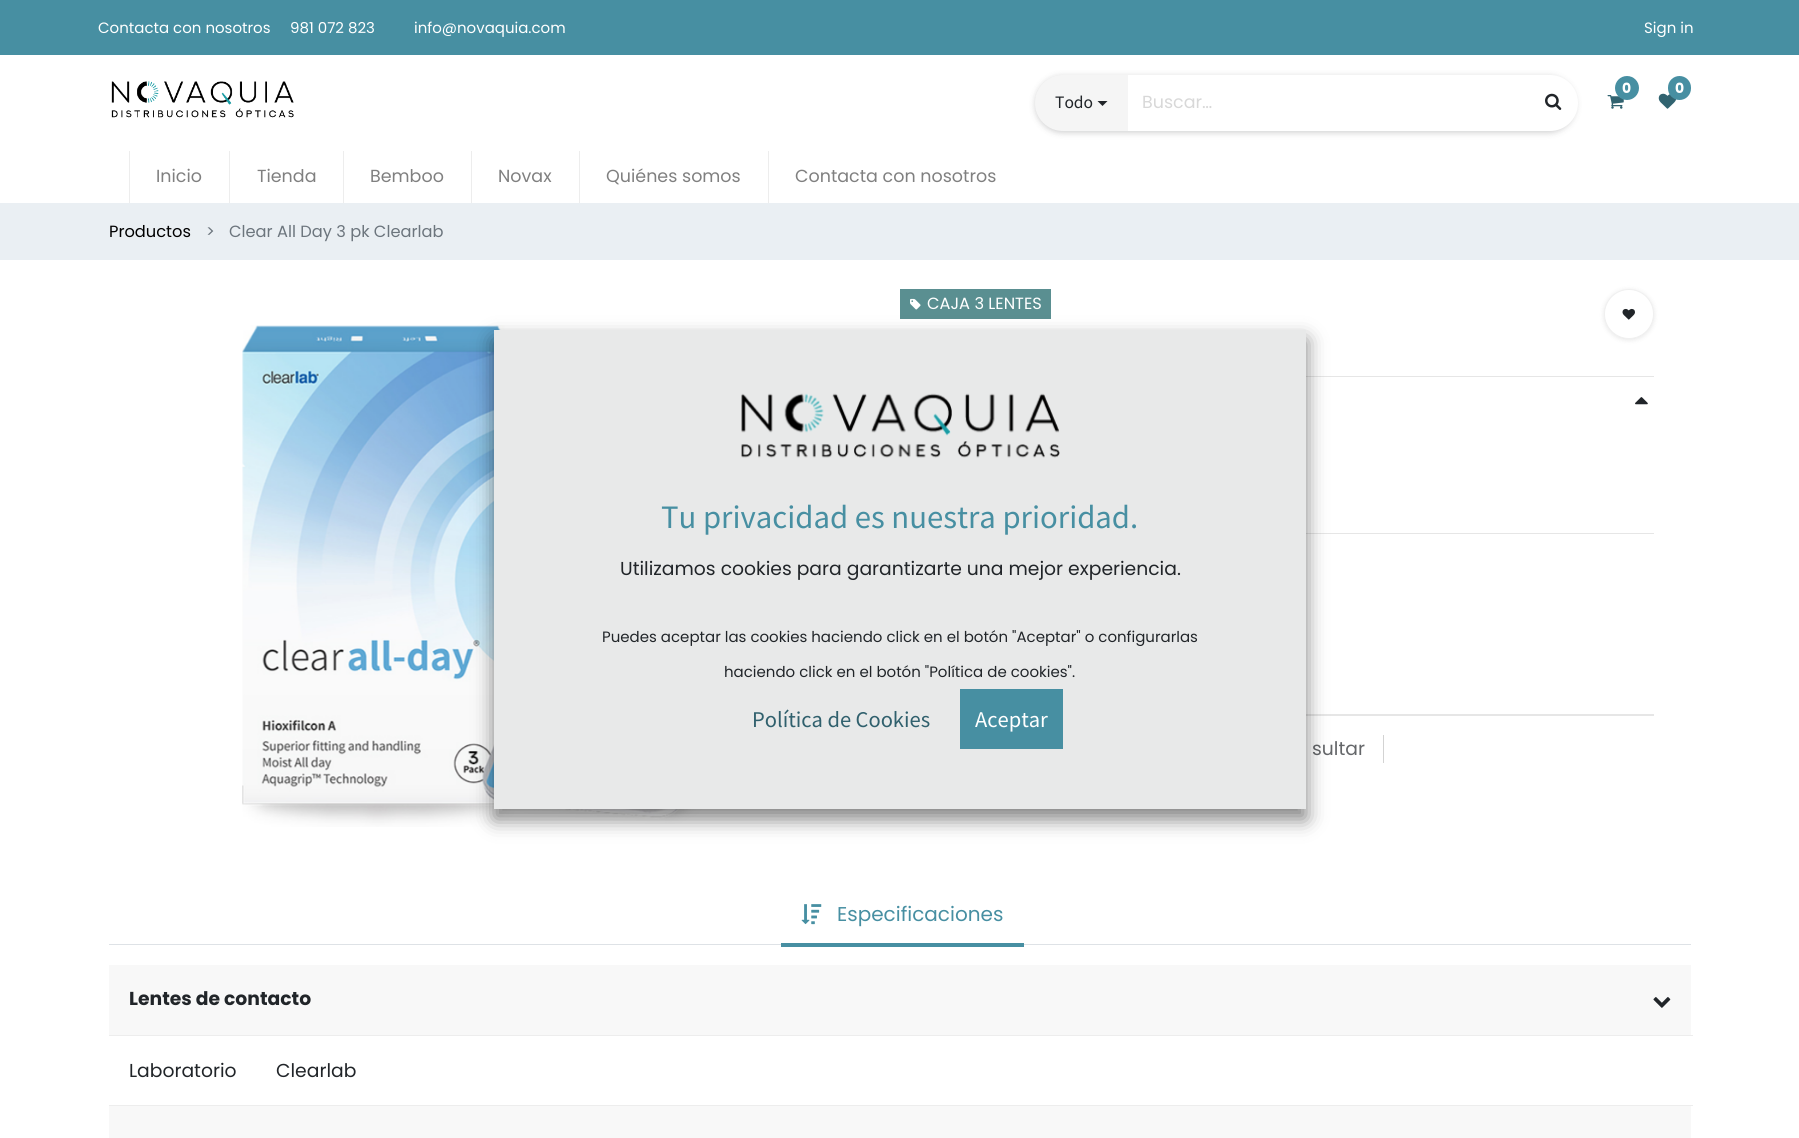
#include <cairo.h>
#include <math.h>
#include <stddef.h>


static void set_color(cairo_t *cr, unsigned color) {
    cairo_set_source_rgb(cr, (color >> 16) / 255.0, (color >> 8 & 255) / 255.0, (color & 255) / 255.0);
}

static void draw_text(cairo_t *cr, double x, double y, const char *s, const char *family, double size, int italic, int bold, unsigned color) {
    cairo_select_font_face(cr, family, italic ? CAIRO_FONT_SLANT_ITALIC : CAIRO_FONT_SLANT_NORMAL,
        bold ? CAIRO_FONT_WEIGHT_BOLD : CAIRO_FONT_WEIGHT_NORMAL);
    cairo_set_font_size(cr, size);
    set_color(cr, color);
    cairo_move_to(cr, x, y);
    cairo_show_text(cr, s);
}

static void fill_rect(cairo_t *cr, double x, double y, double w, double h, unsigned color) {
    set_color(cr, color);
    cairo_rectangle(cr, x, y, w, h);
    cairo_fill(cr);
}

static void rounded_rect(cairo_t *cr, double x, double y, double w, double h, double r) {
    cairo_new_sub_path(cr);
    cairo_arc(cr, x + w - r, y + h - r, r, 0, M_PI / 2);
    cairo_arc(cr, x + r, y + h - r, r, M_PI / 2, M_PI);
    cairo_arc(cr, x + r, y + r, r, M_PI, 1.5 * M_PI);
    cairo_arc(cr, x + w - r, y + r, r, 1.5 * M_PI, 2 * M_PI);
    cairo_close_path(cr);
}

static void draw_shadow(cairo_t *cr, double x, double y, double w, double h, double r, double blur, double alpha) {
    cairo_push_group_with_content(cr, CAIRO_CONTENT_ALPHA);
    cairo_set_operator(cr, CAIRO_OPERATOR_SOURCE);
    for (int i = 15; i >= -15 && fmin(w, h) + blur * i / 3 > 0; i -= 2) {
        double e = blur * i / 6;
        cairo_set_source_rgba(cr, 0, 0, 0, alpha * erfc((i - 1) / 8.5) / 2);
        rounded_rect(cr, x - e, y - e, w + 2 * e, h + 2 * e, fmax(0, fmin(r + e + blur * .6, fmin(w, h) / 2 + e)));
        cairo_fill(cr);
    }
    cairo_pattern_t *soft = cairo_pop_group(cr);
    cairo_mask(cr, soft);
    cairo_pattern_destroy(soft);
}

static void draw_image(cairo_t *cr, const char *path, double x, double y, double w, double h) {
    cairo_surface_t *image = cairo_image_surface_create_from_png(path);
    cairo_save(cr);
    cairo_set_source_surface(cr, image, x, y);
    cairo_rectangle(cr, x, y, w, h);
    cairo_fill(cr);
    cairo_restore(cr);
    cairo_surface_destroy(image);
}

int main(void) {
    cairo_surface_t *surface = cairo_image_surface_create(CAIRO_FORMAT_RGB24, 1799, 1138);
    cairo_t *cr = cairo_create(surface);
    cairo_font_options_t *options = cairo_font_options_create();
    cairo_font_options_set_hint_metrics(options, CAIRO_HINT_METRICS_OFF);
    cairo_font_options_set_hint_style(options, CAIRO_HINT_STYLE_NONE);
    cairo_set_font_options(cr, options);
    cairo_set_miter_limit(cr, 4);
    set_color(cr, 0xFFFFFF);
    cairo_paint(cr);
    fill_rect(cr, 0, 0, 1799, 55, 0x478FA2);
    draw_text(cr, 98, 33, "Contacta con nosotros", "Poppins", 15, 0, 0, 0xFFFFFF);
    draw_text(cr, 290, 33, "981 072 823", "Poppins", 15, 0, 0, 0xFFFFFF);
    draw_text(cr, 414, 33, "info@novaquia.com", "Poppins", 15, 0, 0, 0xFFFFFF);
    draw_text(cr, 1644, 33, "Sign in", "Poppins", 15, 0, 0, 0xFFFFFF);
    draw_image(cr, "assets/img1.png", 111, 81, 183, 37);
    draw_image(cr, "assets/img2.png", 1607, 95, 17, 14);
    set_color(cr, 0x478FA2);
    cairo_arc(cr, 1627, 88, 12, 0, 2 * M_PI);
    cairo_fill(cr);
    draw_text(cr, 1622, 93, "0", "Poppins", 14, 0, 1, 0xFFFFFF);
    draw_image(cr, "assets/img3.png", 1658, 93, 19, 16);
    set_color(cr, 0x478FA2);
    rounded_rect(cr, 1668, 76, 23, 24, 11.5);
    cairo_fill(cr);
    draw_text(cr, 1675, 93, "0", "Poppins", 14, 0, 1, 0xFFFFFF);
    set_color(cr, 0x202124);
    draw_shadow(cr, 1035, 76, 541, 57, 28.5, 3, 0.2);
    set_color(cr, 0xF5F5F5);
    cairo_new_path(cr);
    cairo_move_to(cr, 1063, 75);
    cairo_line_to(cr, 1128, 75);
    cairo_line_to(cr, 1128, 131);
    cairo_line_to(cr, 1063, 131);
    cairo_curve_to(cr, 1047.5, 131, 1035, 118.5, 1035, 103);
    cairo_curve_to(cr, 1035, 87.5, 1047.5, 75, 1063, 75);
    cairo_close_path(cr);
    cairo_fill(cr);
    draw_text(cr, 1055, 108, "Todo", "Source Sans Pro", 17.5, 0, 0, 0x212529);
    cairo_new_path(cr);
    cairo_move_to(cr, 1097.5, 101);
    cairo_line_to(cr, 1107.5, 101);
    cairo_line_to(cr, 1102.5, 106);
    cairo_close_path(cr);
    cairo_fill(cr);
    set_color(cr, 0xFFFFFF);
    cairo_new_path(cr);
    cairo_move_to(cr, 1128, 75);
    cairo_line_to(cr, 1550, 75);
    cairo_curve_to(cr, 1565.5, 75, 1578, 87.5, 1578, 103);
    cairo_curve_to(cr, 1578, 118.5, 1565.5, 131, 1550, 131);
    cairo_line_to(cr, 1128, 131);
    cairo_close_path(cr);
    cairo_fill(cr);
    draw_text(cr, 1142, 108, "Buscar…", "Poppins", 17.5, 0, 0, 0xD8D8D8);
    draw_image(cr, "assets/img4.png", 1545, 93, 17, 17);
    fill_rect(cr, 129, 151, 1, 52, 0xEDEDED);
    draw_text(cr, 156, 182, "Inicio", "Poppins", 17.5, 0, 0, 0x808080);
    fill_rect(cr, 229, 151, 1, 52, 0xEDEDED);
    draw_text(cr, 257, 182, "Tienda", "Poppins", 17.5, 0, 0, 0x808080);
    fill_rect(cr, 343, 151, 1, 52, 0xEDEDED);
    draw_text(cr, 370, 182, "Bemboo", "Poppins", 17.5, 0, 0, 0x808080);
    fill_rect(cr, 471, 151, 1, 52, 0xEDEDED);
    draw_text(cr, 498, 182, "Novax", "Poppins", 17.5, 0, 0, 0x808080);
    fill_rect(cr, 579, 151, 1, 52, 0xEDEDED);
    draw_text(cr, 606, 182, "Quiénes somos", "Poppins", 17.5, 0, 0, 0x808080);
    fill_rect(cr, 768, 151, 1, 52, 0xEDEDED);
    draw_text(cr, 795, 182, "Contacta con nosotros", "Poppins", 17.5, 0, 0, 0x808080);
    fill_rect(cr, 0, 203, 1799, 57, 0xEAEFF3);
    draw_text(cr, 109, 237, "Productos", "Poppins", 16.25, 0, 0, 0x000000);
    draw_text(cr, 206, 237, ">", "Poppins", 16.25, 0, 0, 0x6C757D);
    draw_text(cr, 229, 237, "Clear All Day 3 pk Clearlab", "Poppins", 16.25, 0, 0, 0x6C757D);
    draw_image(cr, "assets/img5.png", 242, 325, 497, 502);
    fill_rect(cr, 900, 289, 151, 30, 0x5A8F91);
    draw_image(cr, "assets/img6.png", 910, 298, 11, 12);
    draw_text(cr, 927, 309, "CAJA 3 LENTES", "Poppins", 16.25, 0, 0, 0xFFFFFF);
    set_color(cr, 0x000000);
    draw_shadow(cr, 1604, 290, 50, 50, 25, 2.5, 0.1);
    set_color(cr, 0xFFFFFF);
    cairo_arc(cr, 1629, 314, 24.5, 0, 2 * M_PI);
    cairo_fill_preserve(cr);
    set_color(cr, 0xF0F0F0);
    cairo_set_line_width(cr, 1);
    cairo_stroke(cr);
    draw_image(cr, "assets/img7.png", 1622, 308, 13, 12);
    fill_rect(cr, 1306, 376, 348, 1, 0xE6E6E6);
    draw_image(cr, "assets/img8.png", 1635, 397, 13, 8);
    fill_rect(cr, 1306, 533, 348, 1, 0xE6E6E6);
    fill_rect(cr, 1306, 714, 348, 2, 0xE6E6E6);
    fill_rect(cr, 1383, 735, 1, 28, 0xD3D3D3);
    draw_text(cr, 1312, 755, "sultar", "Poppins", 18.75, 0, 0, 0x646669);
    fill_rect(cr, 109, 944, 1582, 1, 0xDEE2E6);
    fill_rect(cr, 781, 943, 243, 4, 0x478FA2);
    draw_image(cr, "assets/img9.png", 801, 904, 21, 21);
    draw_text(cr, 837, 921, "Especificaciones", "Poppins", 20, 0, 0, 0x478FA2);
    fill_rect(cr, 109, 965, 1582, 70, 0xF8F8F8);
    fill_rect(cr, 109, 1035, 1584, 1, 0xEDEDED);
    draw_text(cr, 129, 1005, "Lentes de contacto", "Poppins", 18.75, 0, 1, 0x212529);
    draw_image(cr, "assets/img10.png", 1653, 997, 18, 11);
    draw_text(cr, 129, 1077, "Laboratorio", "Poppins", 18.75, 0, 0, 0x212529);
    fill_rect(cr, 109, 1105, 1584, 1, 0xEDEDED);
    draw_text(cr, 276, 1077, "Clearlab", "Poppins", 18.75, 0, 0, 0x212529);
    fill_rect(cr, 109, 1106, 1582, 32, 0xF8F8F8);
    set_color(cr, 0x000000);
    draw_shadow(cr, 494, 340, 812, 479, 0, 10, 0.5);
    fill_rect(cr, 494, 330, 812, 479, 0xE8E9E9);
    draw_image(cr, "assets/img11.png", 741, 393, 319, 65);
    draw_text(cr, 661, 528, "Tu privacidad es nuestra prioridad.", "Source Sans Pro", 32.75, 0, 0, 0x478FA2);
    draw_text(cr, 620, 575, "Utilizamos cookies para garantizarte una mejor experiencia.", "Poppins", 18.75, 0, 0, 0x212529);
    draw_text(cr, 602, 642, "Puedes aceptar las cookies haciendo click en el botón \"Aceptar\" o configurarlas", "Poppins", 15, 0, 0, 0x212529);
    draw_text(cr, 724, 677, "haciendo click en el botón \"Política de cookies\".", "Poppins", 15, 0, 0, 0x212529);
    draw_text(cr, 752, 727, "Política de Cookies", "Source Sans Pro", 22.5, 0, 0, 0x30606D);
    fill_rect(cr, 960, 689, 103, 60, 0x478FA2);
    draw_text(cr, 975, 727, "Aceptar", "Source Sans Pro", 22.5, 0, 0, 0xFFFFFF);
    cairo_surface_write_to_png(surface, "output.png");
    cairo_font_options_destroy(options);
    cairo_destroy(cr);
    cairo_surface_destroy(surface);
    return 0;
}
